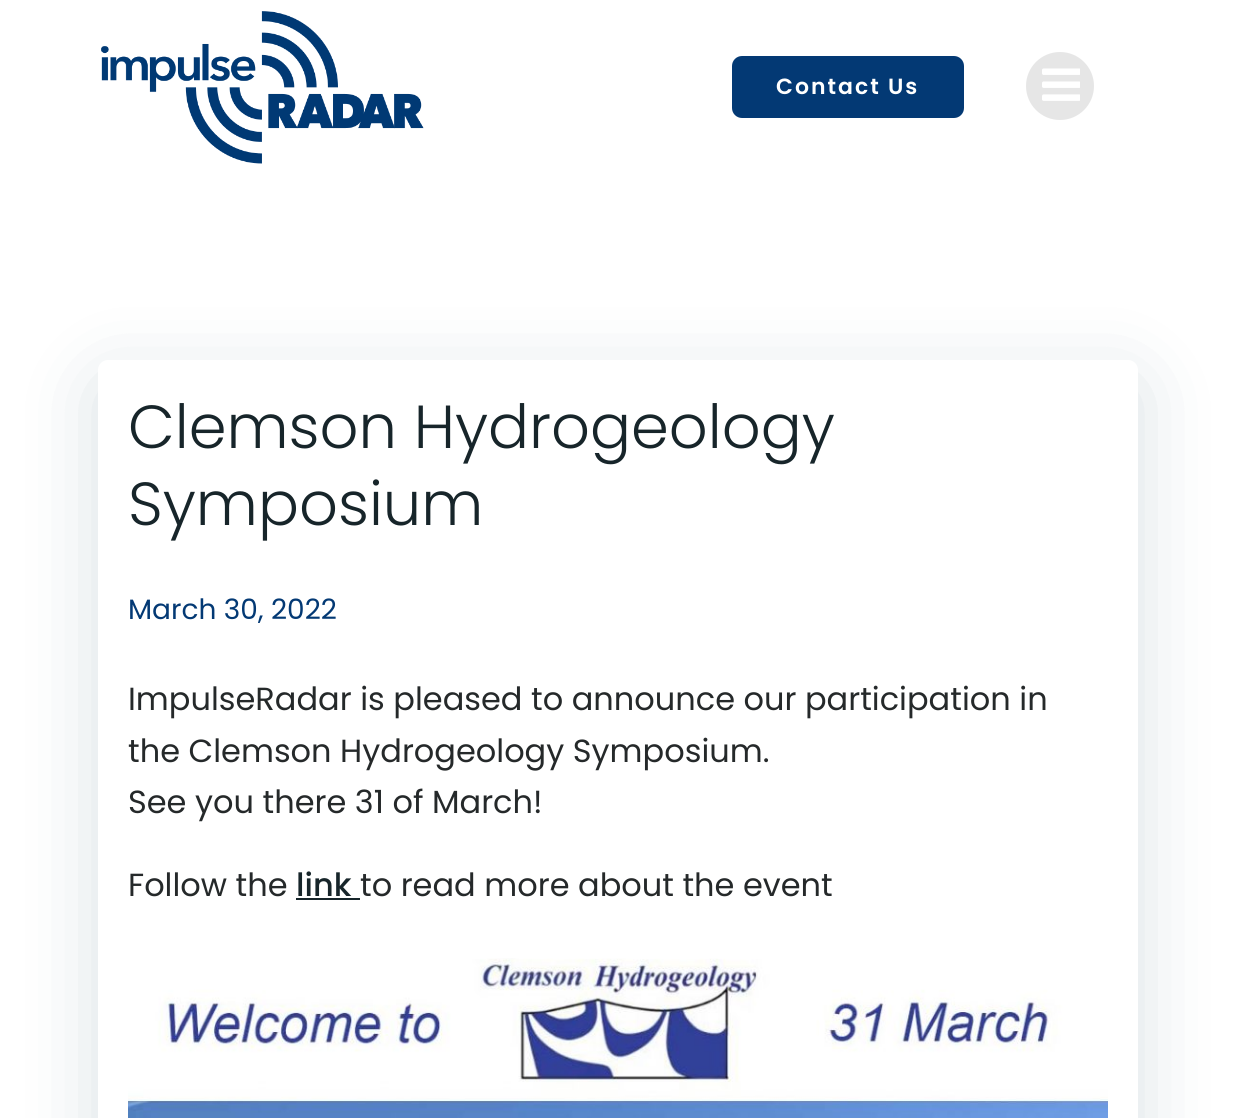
#include <cairo.h>
#include <math.h>
#include <stddef.h>


static void set_color(cairo_t *cr, unsigned color) {
    cairo_set_source_rgb(cr, (color >> 16) / 255.0, (color >> 8 & 255) / 255.0, (color & 255) / 255.0);
}

static void draw_text(cairo_t *cr, double x, double y, const char *s, const char *family, double size, int italic, int bold, unsigned color) {
    cairo_select_font_face(cr, family, italic ? CAIRO_FONT_SLANT_ITALIC : CAIRO_FONT_SLANT_NORMAL,
        bold ? CAIRO_FONT_WEIGHT_BOLD : CAIRO_FONT_WEIGHT_NORMAL);
    cairo_set_font_size(cr, size);
    set_color(cr, color);
    cairo_move_to(cr, x, y);
    cairo_show_text(cr, s);
}

static void draw_spaced(cairo_t *cr, double x, double y, const char *s, double letter, double word) {
    cairo_move_to(cr, x, y);
    while (*s) {
        char ch[5] = {0};
        int n = 0;
        do ch[n++] = *s++; while ((*s & 0xC0) == 0x80);
        cairo_show_text(cr, ch);
        cairo_rel_move_to(cr, letter + word * (*ch == ' '), 0);
    }
}

static void fill_rect(cairo_t *cr, double x, double y, double w, double h, unsigned color) {
    set_color(cr, color);
    cairo_rectangle(cr, x, y, w, h);
    cairo_fill(cr);
}

static void rounded_rect(cairo_t *cr, double x, double y, double w, double h, double r) {
    cairo_new_sub_path(cr);
    cairo_arc(cr, x + w - r, y + h - r, r, 0, M_PI / 2);
    cairo_arc(cr, x + r, y + h - r, r, M_PI / 2, M_PI);
    cairo_arc(cr, x + r, y + r, r, M_PI, 1.5 * M_PI);
    cairo_arc(cr, x + w - r, y + r, r, 1.5 * M_PI, 2 * M_PI);
    cairo_close_path(cr);
}

static void draw_shadow(cairo_t *cr, double x, double y, double w, double h, double r, double blur, double alpha) {
    cairo_push_group_with_content(cr, CAIRO_CONTENT_ALPHA);
    cairo_set_operator(cr, CAIRO_OPERATOR_SOURCE);
    for (int i = 15; i >= -15 && fmin(w, h) + blur * i / 3 > 0; i -= 2) {
        double e = blur * i / 6;
        cairo_set_source_rgba(cr, 0, 0, 0, alpha * erfc((i - 1) / 8.5) / 2);
        rounded_rect(cr, x - e, y - e, w + 2 * e, h + 2 * e, fmax(0, fmin(r + e + blur * .6, fmin(w, h) / 2 + e)));
        cairo_fill(cr);
    }
    cairo_pattern_t *soft = cairo_pop_group(cr);
    cairo_mask(cr, soft);
    cairo_pattern_destroy(soft);
}

static void draw_image(cairo_t *cr, const char *path, double x, double y, double w, double h) {
    cairo_surface_t *image = cairo_image_surface_create_from_png(path);
    cairo_save(cr);
    cairo_set_source_surface(cr, image, x, y);
    cairo_rectangle(cr, x, y, w, h);
    cairo_fill(cr);
    cairo_restore(cr);
    cairo_surface_destroy(image);
}

int main(void) {
    cairo_surface_t *surface = cairo_image_surface_create(CAIRO_FORMAT_RGB24, 1235, 1118);
    cairo_t *cr = cairo_create(surface);
    cairo_font_options_t *options = cairo_font_options_create();
    cairo_font_options_set_hint_metrics(options, CAIRO_HINT_METRICS_OFF);
    cairo_font_options_set_hint_style(options, CAIRO_HINT_STYLE_NONE);
    cairo_set_font_options(cr, options);
    cairo_set_miter_limit(cr, 4);
    set_color(cr, 0xFFFFFF);
    cairo_paint(cr);
    draw_image(cr, "assets/img1.png", 101, 11, 323, 153);
    set_color(cr, 0x033974);
    rounded_rect(cr, 734, 58, 228, 58, 8);
    cairo_fill_preserve(cr);
    cairo_set_line_width(cr, 4);
    cairo_stroke(cr);
    cairo_select_font_face(cr, "Poppins SemiBold", CAIRO_FONT_SLANT_NORMAL, CAIRO_FONT_WEIGHT_NORMAL);
    cairo_set_font_size(cr, 22);
    set_color(cr, 0xFFFFFF);
    draw_spaced(cr, 776, 94, "Contact Us", 2, 0);
    set_color(cr, 0xE6E6E6);
    cairo_new_path(cr);
    cairo_arc(cr, 1060, 86, 34, 0, 2 * M_PI);
    cairo_fill(cr);
    draw_image(cr, "assets/img2.png", 1042, 68, 38, 33);
    set_color(cr, 0x01334A);
    draw_shadow(cr, 98, 380, 1040, 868, 10, 40, 0.15);
    set_color(cr, 0xFFFFFF);
    rounded_rect(cr, 98, 360, 1040, 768, 10);
    cairo_fill(cr);
    draw_text(cr, 128, 448, "Clemson Hydrogeology", "Poppins Light", 60.75, 0, 0, 0x17252A);
    draw_text(cr, 128, 525, "Symposium", "Poppins Light", 60.75, 0, 0, 0x17252A);
    draw_text(cr, 128, 619, "March 30, 2022", "Poppins", 28, 0, 0, 0x033974);
    draw_text(cr, 128, 710, "ImpulseRadar is pleased to announce our participation in", "Poppins", 32, 0, 0, 0x25292A);
    draw_text(cr, 128, 762, "the Clemson Hydrogeology Symposium.", "Poppins", 32, 0, 0, 0x25292A);
    draw_text(cr, 128, 813, "See you there 31 of March!", "Poppins", 32, 0, 0, 0x25292A);
    draw_text(cr, 128, 896, "Follow the", "Poppins", 32, 0, 0, 0x25292A);
    draw_text(cr, 296, 896, "link", "Poppins Medium", 32, 0, 0, 0x17252A);
    fill_rect(cr, 296, 898, 64, 2, 0x17252A);
    draw_text(cr, 360, 896, "to read more about the event", "Poppins", 32, 0, 0, 0x25292A);
    draw_image(cr, "assets/img3.png", 128, 958, 980, 160);
    cairo_surface_write_to_png(surface, "output.png");
    cairo_font_options_destroy(options);
    cairo_destroy(cr);
    cairo_surface_destroy(surface);
    return 0;
}
